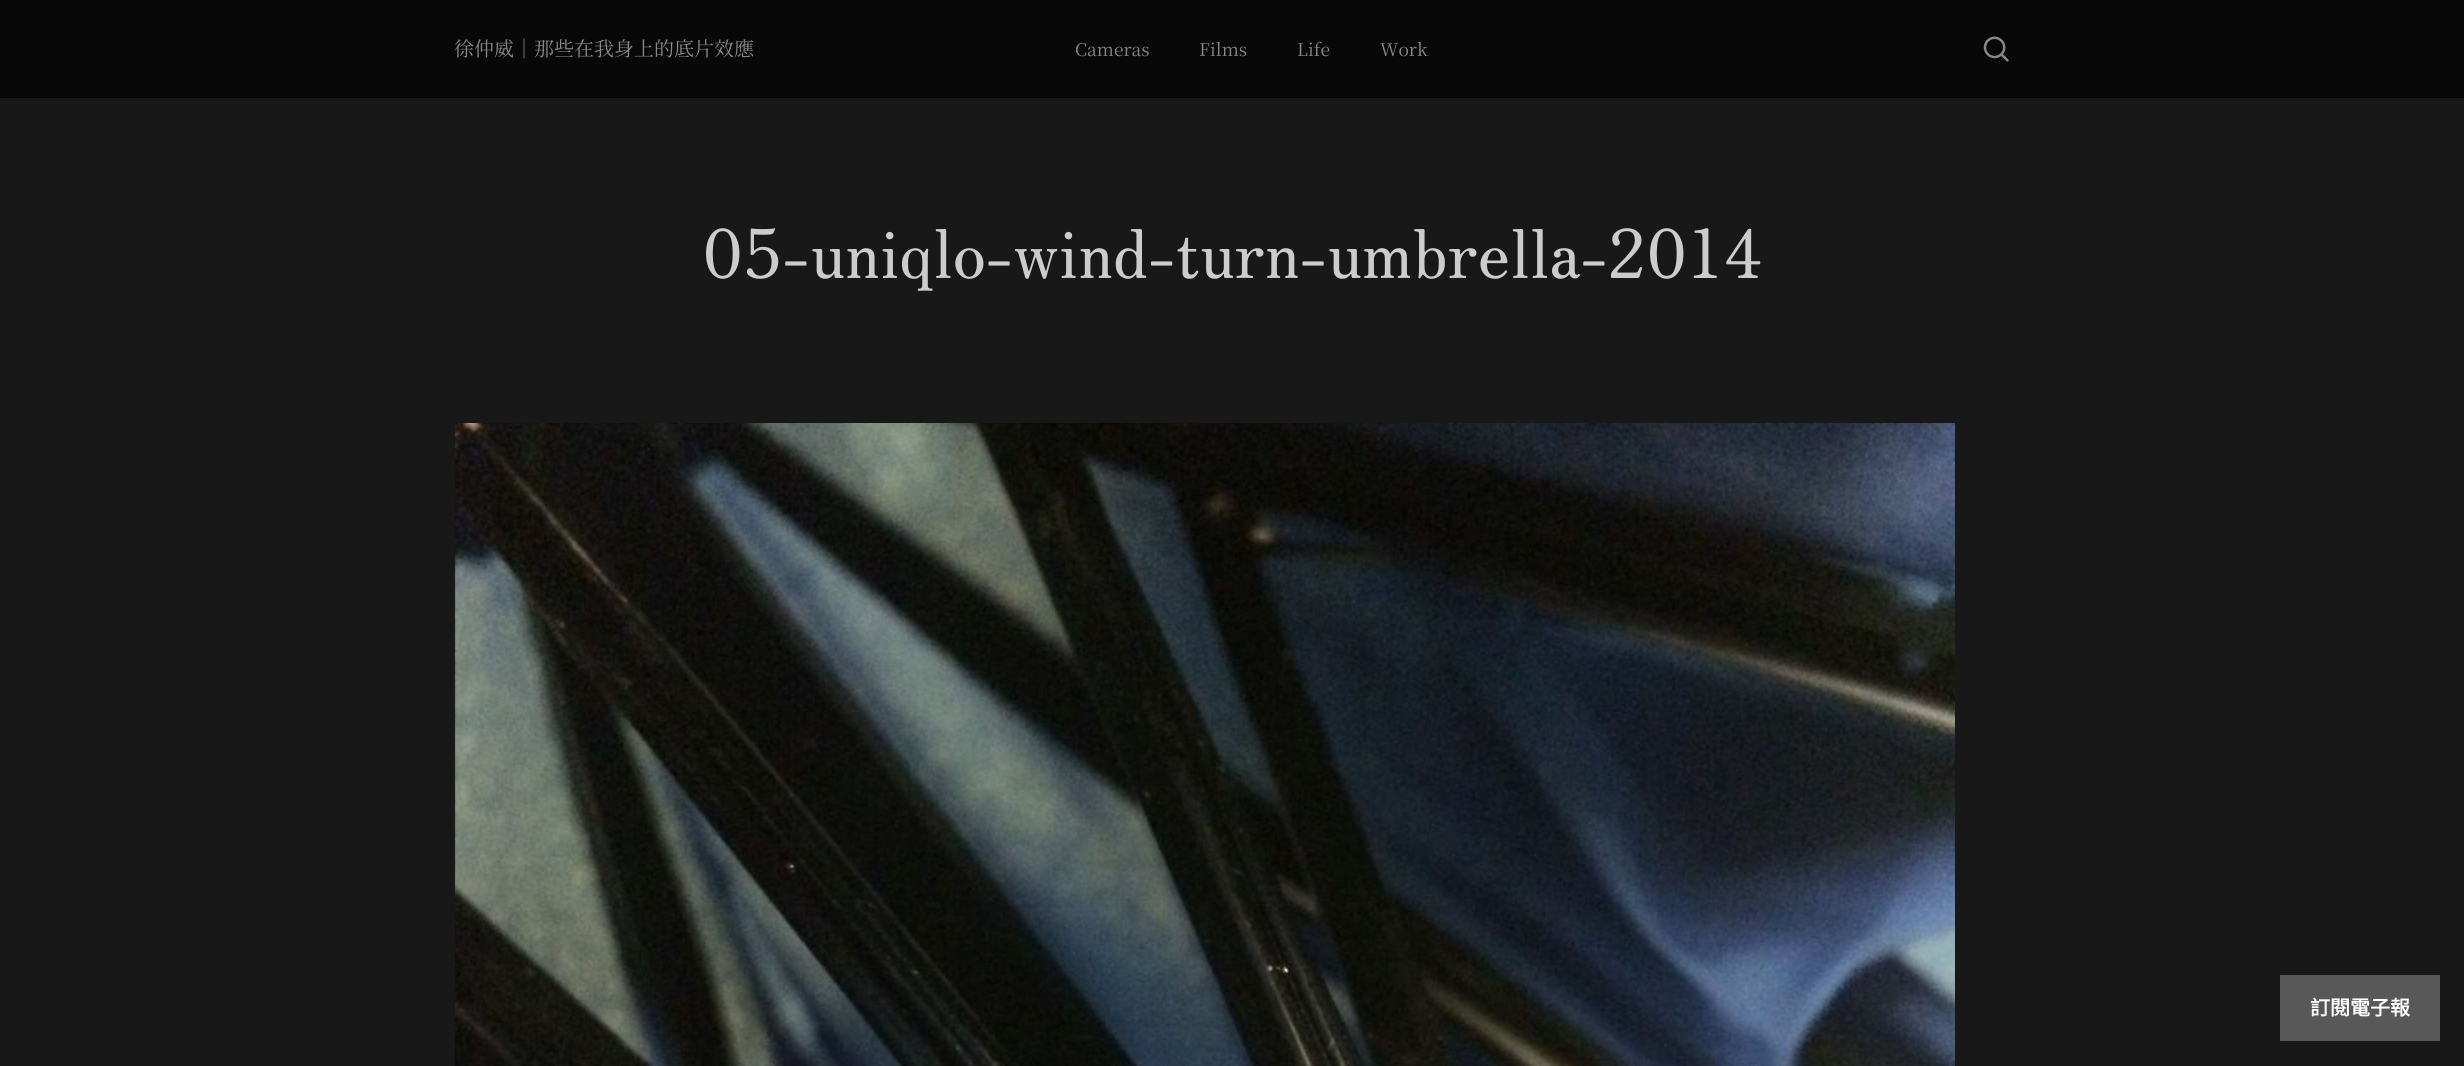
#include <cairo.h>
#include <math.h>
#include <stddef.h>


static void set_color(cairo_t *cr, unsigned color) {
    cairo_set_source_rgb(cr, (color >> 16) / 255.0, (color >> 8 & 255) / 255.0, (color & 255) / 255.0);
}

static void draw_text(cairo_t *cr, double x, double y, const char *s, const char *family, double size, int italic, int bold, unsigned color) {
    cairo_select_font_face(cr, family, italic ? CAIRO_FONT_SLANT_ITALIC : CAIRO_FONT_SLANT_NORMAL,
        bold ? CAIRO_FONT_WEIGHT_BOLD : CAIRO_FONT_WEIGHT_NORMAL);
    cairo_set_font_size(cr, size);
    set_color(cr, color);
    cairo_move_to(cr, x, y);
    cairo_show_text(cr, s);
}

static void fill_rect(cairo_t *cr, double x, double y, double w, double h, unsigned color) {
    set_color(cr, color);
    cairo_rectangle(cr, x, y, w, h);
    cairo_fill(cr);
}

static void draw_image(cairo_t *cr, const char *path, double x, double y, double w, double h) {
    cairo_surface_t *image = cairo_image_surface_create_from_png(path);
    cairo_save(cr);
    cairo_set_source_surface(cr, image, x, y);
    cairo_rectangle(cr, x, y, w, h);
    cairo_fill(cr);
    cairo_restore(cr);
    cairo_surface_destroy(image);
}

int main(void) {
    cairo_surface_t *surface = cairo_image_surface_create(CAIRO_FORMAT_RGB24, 2464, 1066);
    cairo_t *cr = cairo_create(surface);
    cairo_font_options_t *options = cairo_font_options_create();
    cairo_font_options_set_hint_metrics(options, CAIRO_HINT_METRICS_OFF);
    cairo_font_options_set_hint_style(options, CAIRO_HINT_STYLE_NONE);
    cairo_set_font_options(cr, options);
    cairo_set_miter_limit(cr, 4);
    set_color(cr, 0x181818);
    cairo_paint(cr);
    fill_rect(cr, 0, 0, 2464, 98, 0x080808);
    draw_text(cr, 454, 56, "徐仲威｜那些在我身上的底片效應", "Noto Serif JP ExtraLight", 20, 0, 0, 0x888888);
    draw_text(cr, 1075, 56, "Cameras", "Noto Serif TC", 17.5, 0, 0, 0x888888);
    draw_text(cr, 1199, 56, "Films", "Noto Serif TC", 17.5, 0, 0, 0x888888);
    draw_text(cr, 1297, 56, "Life", "Noto Serif TC", 17.5, 0, 0, 0x888888);
    draw_text(cr, 1380, 56, "Work", "Noto Serif TC", 17.5, 0, 0, 0x888888);
    draw_image(cr, "assets/img1.png", 1983, 36, 26, 26);
    draw_text(cr, 702, 278, "05-uniqlo-wind-turn-umbrella-2014", "Zen Old Mincho", 67.5, 0, 0, 0xCCCCCC);
    draw_image(cr, "assets/img2.png", 454, 423, 1501, 643);
    fill_rect(cr, 2280, 975, 160, 66, 0x585858);
    draw_text(cr, 2310, 1015, "訂閱電子報", "Noto Sans CJK TC", 20, 0, 1, 0xFFFFFF);
    cairo_surface_write_to_png(surface, "output.png");
    cairo_font_options_destroy(options);
    cairo_destroy(cr);
    cairo_surface_destroy(surface);
    return 0;
}
